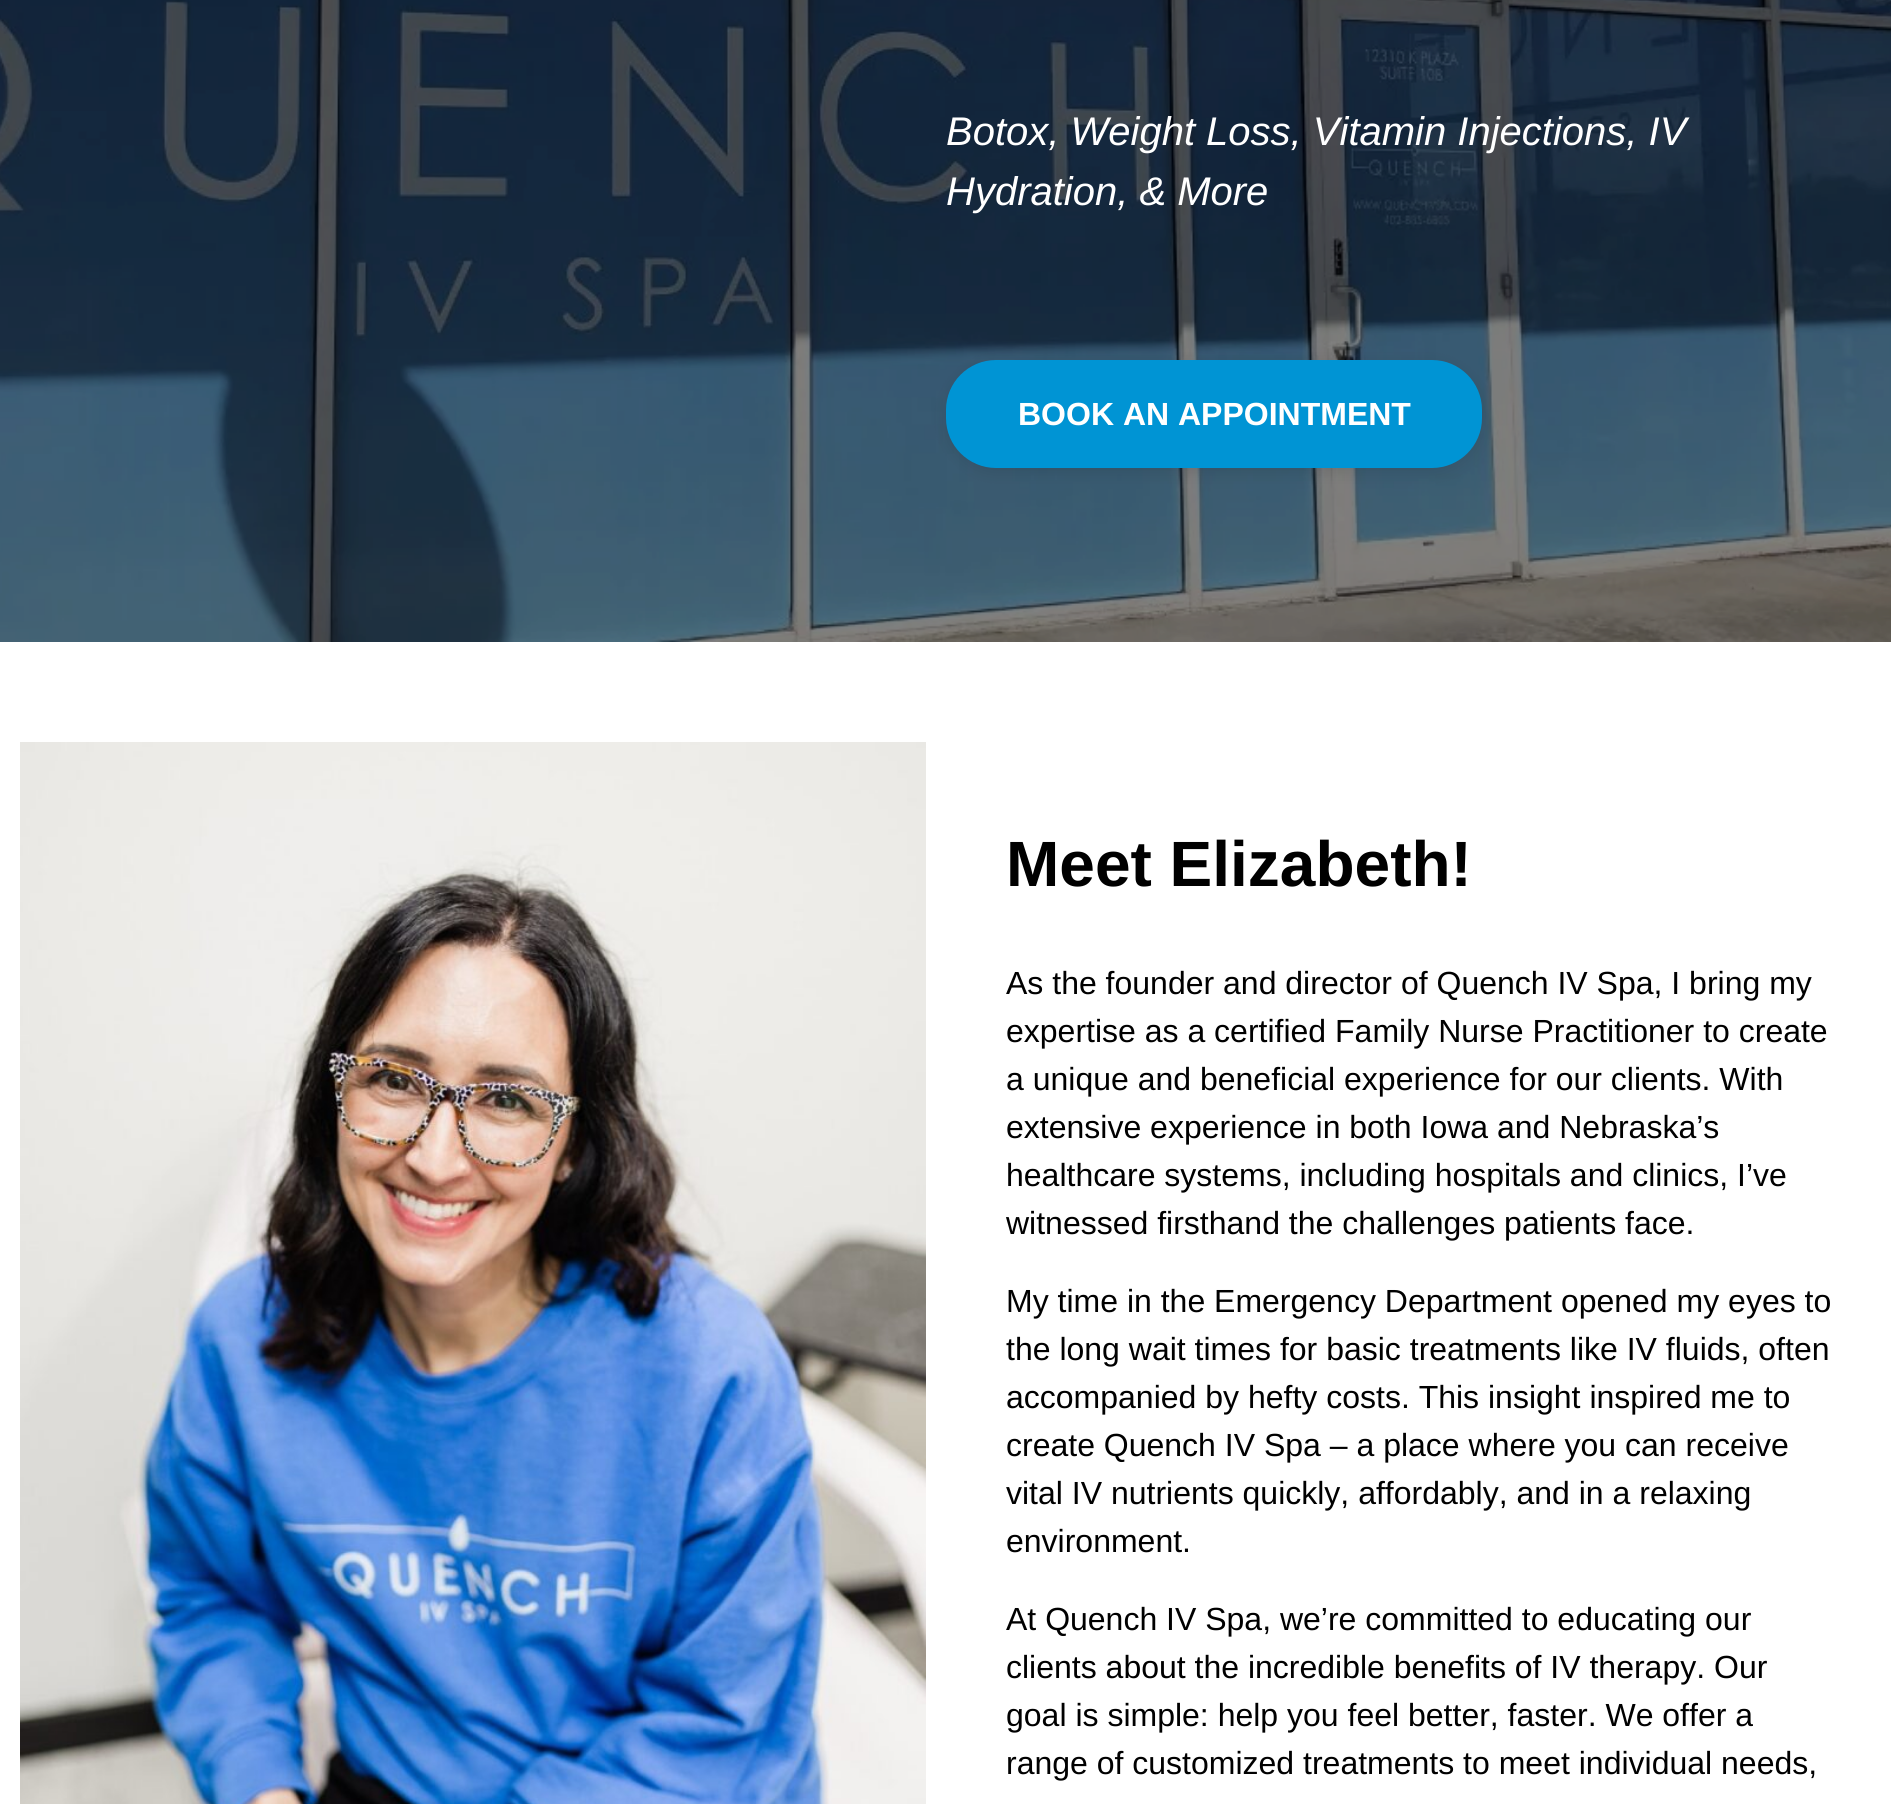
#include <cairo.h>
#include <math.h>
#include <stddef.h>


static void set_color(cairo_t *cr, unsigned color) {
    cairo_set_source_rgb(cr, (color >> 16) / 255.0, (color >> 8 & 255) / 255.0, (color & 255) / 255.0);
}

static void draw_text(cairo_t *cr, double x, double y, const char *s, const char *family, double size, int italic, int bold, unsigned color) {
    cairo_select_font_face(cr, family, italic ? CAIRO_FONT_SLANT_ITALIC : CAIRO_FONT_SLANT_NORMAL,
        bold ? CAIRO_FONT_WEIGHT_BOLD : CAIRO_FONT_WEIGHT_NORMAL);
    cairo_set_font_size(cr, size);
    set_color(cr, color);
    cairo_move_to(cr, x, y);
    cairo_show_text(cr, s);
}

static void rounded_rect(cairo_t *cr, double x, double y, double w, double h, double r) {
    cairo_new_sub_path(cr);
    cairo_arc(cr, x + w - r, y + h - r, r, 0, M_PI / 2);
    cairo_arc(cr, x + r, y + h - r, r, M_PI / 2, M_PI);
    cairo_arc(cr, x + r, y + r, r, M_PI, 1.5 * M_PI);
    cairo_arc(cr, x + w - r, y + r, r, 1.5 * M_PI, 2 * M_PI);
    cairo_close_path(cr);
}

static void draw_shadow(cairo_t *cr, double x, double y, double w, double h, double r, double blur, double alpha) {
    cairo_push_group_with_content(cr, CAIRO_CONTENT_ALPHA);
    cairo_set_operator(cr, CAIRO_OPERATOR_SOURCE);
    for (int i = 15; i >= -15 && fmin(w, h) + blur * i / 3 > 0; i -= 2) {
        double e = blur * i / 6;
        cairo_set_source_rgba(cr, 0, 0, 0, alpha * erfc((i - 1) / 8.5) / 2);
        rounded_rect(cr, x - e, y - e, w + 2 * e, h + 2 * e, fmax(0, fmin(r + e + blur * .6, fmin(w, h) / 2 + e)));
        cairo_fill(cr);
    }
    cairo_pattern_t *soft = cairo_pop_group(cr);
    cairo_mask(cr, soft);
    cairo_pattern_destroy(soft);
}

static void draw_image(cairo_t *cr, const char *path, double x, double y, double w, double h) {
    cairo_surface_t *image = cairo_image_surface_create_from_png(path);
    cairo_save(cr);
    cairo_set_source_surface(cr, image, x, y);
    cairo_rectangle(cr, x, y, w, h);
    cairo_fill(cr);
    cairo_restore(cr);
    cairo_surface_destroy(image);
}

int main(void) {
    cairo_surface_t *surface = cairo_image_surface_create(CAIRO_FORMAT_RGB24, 1891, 1804);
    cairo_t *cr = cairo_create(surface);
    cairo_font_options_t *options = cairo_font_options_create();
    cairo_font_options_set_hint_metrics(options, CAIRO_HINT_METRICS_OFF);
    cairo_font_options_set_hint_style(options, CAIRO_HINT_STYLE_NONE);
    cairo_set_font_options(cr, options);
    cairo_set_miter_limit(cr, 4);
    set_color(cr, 0xFFFFFF);
    cairo_paint(cr);
    draw_image(cr, "assets/img1.png", 0, 0, 1891, 642);
    draw_text(cr, 946, 145, "Botox, Weight Loss, Vitamin Injections, IV", "Liberation Sans", 40, 1, 0, 0xFFFFFF);
    draw_text(cr, 946, 205, "Hydration, & More", "Liberation Sans", 40, 1, 0, 0xFFFFFF);
    set_color(cr, 0x000000);
    draw_shadow(cr, 946, 364, 536, 108, 50, 8, 0.1);
    set_color(cr, 0x0094D4);
    rounded_rect(cr, 946, 360, 536, 108, 50);
    cairo_fill(cr);
    draw_text(cr, 1018, 425, "BOOK AN APPOINTMENT", "Liberation Sans", 32, 0, 1, 0xFFFFFF);
    draw_image(cr, "assets/img2.png", 20, 742, 906, 1062);
    draw_text(cr, 1006, 886, "Meet Elizabeth!", "Liberation Sans", 64, 0, 1, 0x000000);
    draw_text(cr, 1006, 994, "As the founder and director of Quench IV Spa, I bring my", "Liberation Sans", 32, 0, 0, 0x000000);
    draw_text(cr, 1006, 1042, "expertise as a certified Family Nurse Practitioner to create", "Liberation Sans", 32, 0, 0, 0x000000);
    draw_text(cr, 1006, 1090, "a unique and beneficial experience for our clients. With", "Liberation Sans", 32, 0, 0, 0x000000);
    draw_text(cr, 1006, 1138, "extensive experience in both Iowa and Nebraska’s", "Liberation Sans", 32, 0, 0, 0x000000);
    draw_text(cr, 1006, 1186, "healthcare systems, including hospitals and clinics, I’ve", "Liberation Sans", 32, 0, 0, 0x000000);
    draw_text(cr, 1006, 1234, "witnessed firsthand the challenges patients face.", "Liberation Sans", 32, 0, 0, 0x000000);
    draw_text(cr, 1006, 1312, "My time in the Emergency Department opened my eyes to", "Liberation Sans", 32, 0, 0, 0x000000);
    draw_text(cr, 1006, 1360, "the long wait times for basic treatments like IV fluids, often", "Liberation Sans", 32, 0, 0, 0x000000);
    draw_text(cr, 1006, 1408, "accompanied by hefty costs. This insight inspired me to", "Liberation Sans", 32, 0, 0, 0x000000);
    draw_text(cr, 1006, 1456, "create Quench IV Spa – a place where you can receive", "Liberation Sans", 32, 0, 0, 0x000000);
    draw_text(cr, 1006, 1504, "vital IV nutrients quickly, affordably, and in a relaxing", "Liberation Sans", 32, 0, 0, 0x000000);
    draw_text(cr, 1006, 1552, "environment.", "Liberation Sans", 32, 0, 0, 0x000000);
    draw_text(cr, 1006, 1630, "At Quench IV Spa, we’re committed to educating our", "Liberation Sans", 32, 0, 0, 0x000000);
    draw_text(cr, 1006, 1678, "clients about the incredible benefits of IV therapy. Our", "Liberation Sans", 32, 0, 0, 0x000000);
    draw_text(cr, 1006, 1726, "goal is simple: help you feel better, faster. We offer a", "Liberation Sans", 32, 0, 0, 0x000000);
    draw_text(cr, 1006, 1774, "range of customized treatments to meet individual needs,", "Liberation Sans", 32, 0, 0, 0x000000);
    cairo_surface_write_to_png(surface, "output.png");
    cairo_font_options_destroy(options);
    cairo_destroy(cr);
    cairo_surface_destroy(surface);
    return 0;
}
